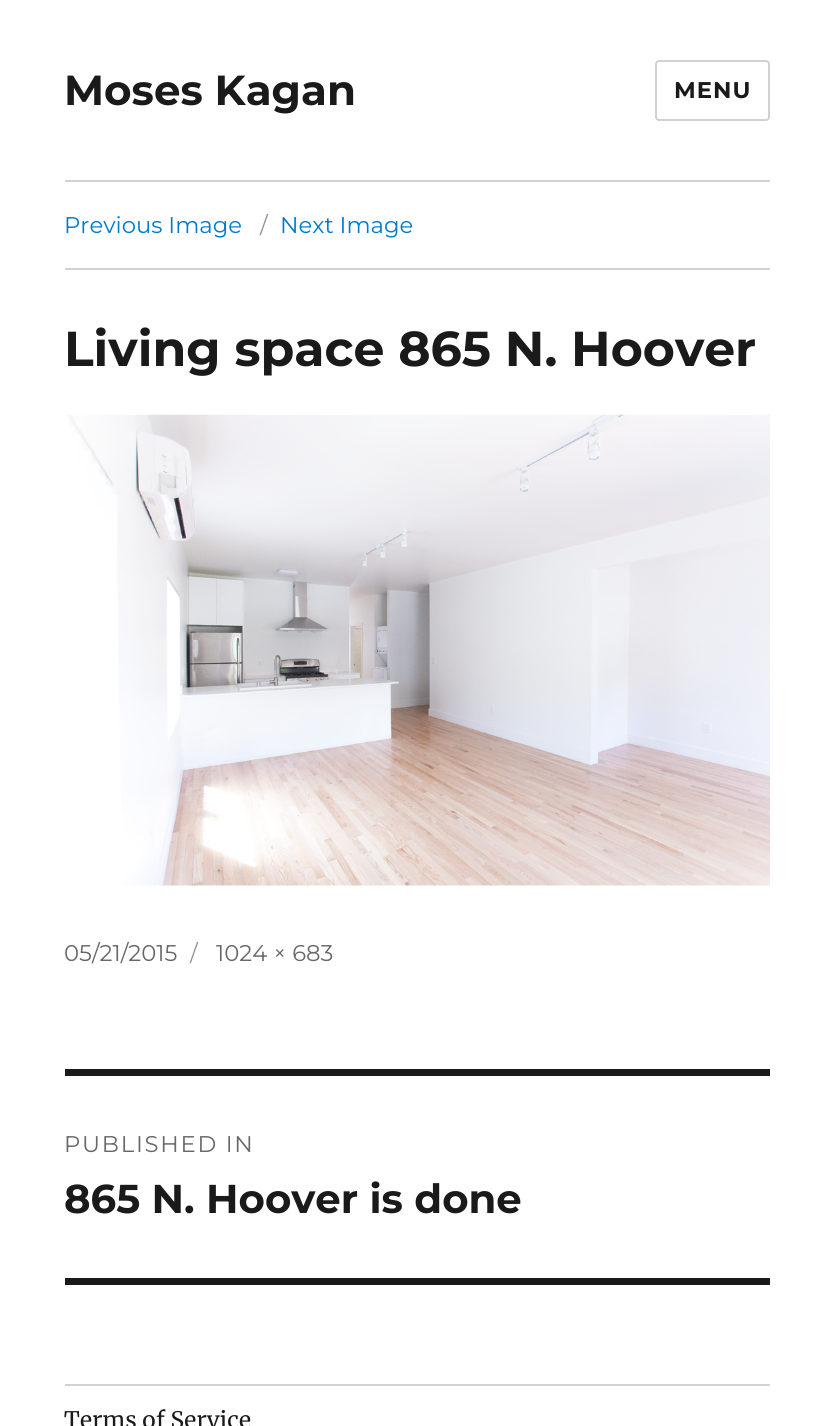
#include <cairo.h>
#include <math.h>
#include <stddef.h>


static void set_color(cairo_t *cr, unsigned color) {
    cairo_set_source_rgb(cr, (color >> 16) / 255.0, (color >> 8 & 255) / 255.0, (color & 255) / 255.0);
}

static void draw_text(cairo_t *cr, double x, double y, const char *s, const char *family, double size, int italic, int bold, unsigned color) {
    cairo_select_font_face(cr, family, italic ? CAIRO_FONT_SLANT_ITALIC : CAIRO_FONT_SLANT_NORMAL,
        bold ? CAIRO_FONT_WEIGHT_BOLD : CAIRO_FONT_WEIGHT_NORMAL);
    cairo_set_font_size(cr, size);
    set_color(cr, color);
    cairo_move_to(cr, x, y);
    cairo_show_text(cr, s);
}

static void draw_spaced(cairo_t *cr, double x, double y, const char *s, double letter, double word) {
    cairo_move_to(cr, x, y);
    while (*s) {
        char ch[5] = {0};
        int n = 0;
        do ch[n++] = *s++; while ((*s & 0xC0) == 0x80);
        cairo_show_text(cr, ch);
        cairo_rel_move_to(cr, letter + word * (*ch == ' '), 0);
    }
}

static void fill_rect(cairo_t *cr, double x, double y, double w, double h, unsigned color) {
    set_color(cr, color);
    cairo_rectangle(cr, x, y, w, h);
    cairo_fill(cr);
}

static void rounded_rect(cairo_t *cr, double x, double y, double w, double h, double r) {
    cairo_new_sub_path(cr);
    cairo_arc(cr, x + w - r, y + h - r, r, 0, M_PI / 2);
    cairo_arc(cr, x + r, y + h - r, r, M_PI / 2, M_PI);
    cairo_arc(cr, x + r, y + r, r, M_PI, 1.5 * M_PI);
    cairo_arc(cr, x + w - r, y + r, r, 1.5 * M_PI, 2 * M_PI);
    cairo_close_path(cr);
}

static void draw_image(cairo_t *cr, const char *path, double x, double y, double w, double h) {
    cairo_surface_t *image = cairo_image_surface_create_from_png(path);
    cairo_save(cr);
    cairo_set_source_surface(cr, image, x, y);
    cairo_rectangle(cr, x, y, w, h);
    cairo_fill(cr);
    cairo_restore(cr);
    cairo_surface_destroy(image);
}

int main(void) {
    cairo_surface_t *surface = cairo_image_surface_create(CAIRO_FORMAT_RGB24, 834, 1426);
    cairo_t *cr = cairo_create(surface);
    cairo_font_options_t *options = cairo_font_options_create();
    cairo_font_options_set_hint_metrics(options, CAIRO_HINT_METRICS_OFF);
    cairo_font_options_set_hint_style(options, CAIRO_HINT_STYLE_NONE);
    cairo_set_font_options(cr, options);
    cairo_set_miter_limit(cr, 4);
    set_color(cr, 0xFFFFFF);
    cairo_paint(cr);
    draw_text(cr, 64, 105, "Moses Kagan", "Montserrat Thin", 42, 0, 0, 0x1A1A1A);
    rounded_rect(cr, 656, 61, 113, 59, 3);
    set_color(cr, 0xD1D1D1);
    cairo_stroke(cr);
    cairo_set_font_size(cr, 22.75);
    set_color(cr, 0x1A1A1A);
    draw_spaced(cr, 674, 98, "MENU", 1, 0);
    fill_rect(cr, 65, 180, 705, 2, 0xD1D1D1);
    fill_rect(cr, 65, 268, 705, 2, 0xD1D1D1);
    draw_text(cr, 64, 233, "Previous Image", "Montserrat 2 Thin", 22.75, 0, 0, 0x007ACC);
    draw_text(cr, 260, 233, "/", "Montserrat 2 Thin", 22.75, 0, 0, 0x959595);
    draw_text(cr, 280, 233, "Next Image", "Montserrat 2 Thin", 22.75, 0, 0, 0x007ACC);
    draw_text(cr, 64, 366, "Living space 865 N. Hoover", "Montserrat Thin", 49, 0, 0, 0x1A1A1A);
    draw_image(cr, "assets/img1.png", 67, 414, 703, 472);
    draw_text(cr, 64, 961, "05/21/2015", "Montserrat 2 Thin", 22.75, 0, 0, 0x686868);
    draw_text(cr, 190, 961, "/", "Montserrat 2 Thin", 22.75, 0, 0, 0x959595);
    draw_text(cr, 216, 961, "1024 × 683", "Montserrat 2 Thin", 22.75, 0, 0, 0x686868);
    fill_rect(cr, 65, 1069, 705, 7, 0x1A1A1A);
    fill_rect(cr, 65, 1278, 705, 7, 0x1A1A1A);
    set_color(cr, 0x686868);
    draw_spaced(cr, 64, 1152, "PUBLISHED IN", 1.75, 0);
    draw_text(cr, 64, 1213, "865 N. Hoover is done", "Montserrat Thin", 40.25, 0, 0, 0x1A1A1A);
    fill_rect(cr, 65, 1384, 705, 2, 0xD1D1D1);
    draw_text(cr, 64, 1428, "Terms of Service", "Merriweather", 22.75, 0, 0, 0x1A1A1A);
    cairo_surface_write_to_png(surface, "output.png");
    cairo_font_options_destroy(options);
    cairo_destroy(cr);
    cairo_surface_destroy(surface);
    return 0;
}
